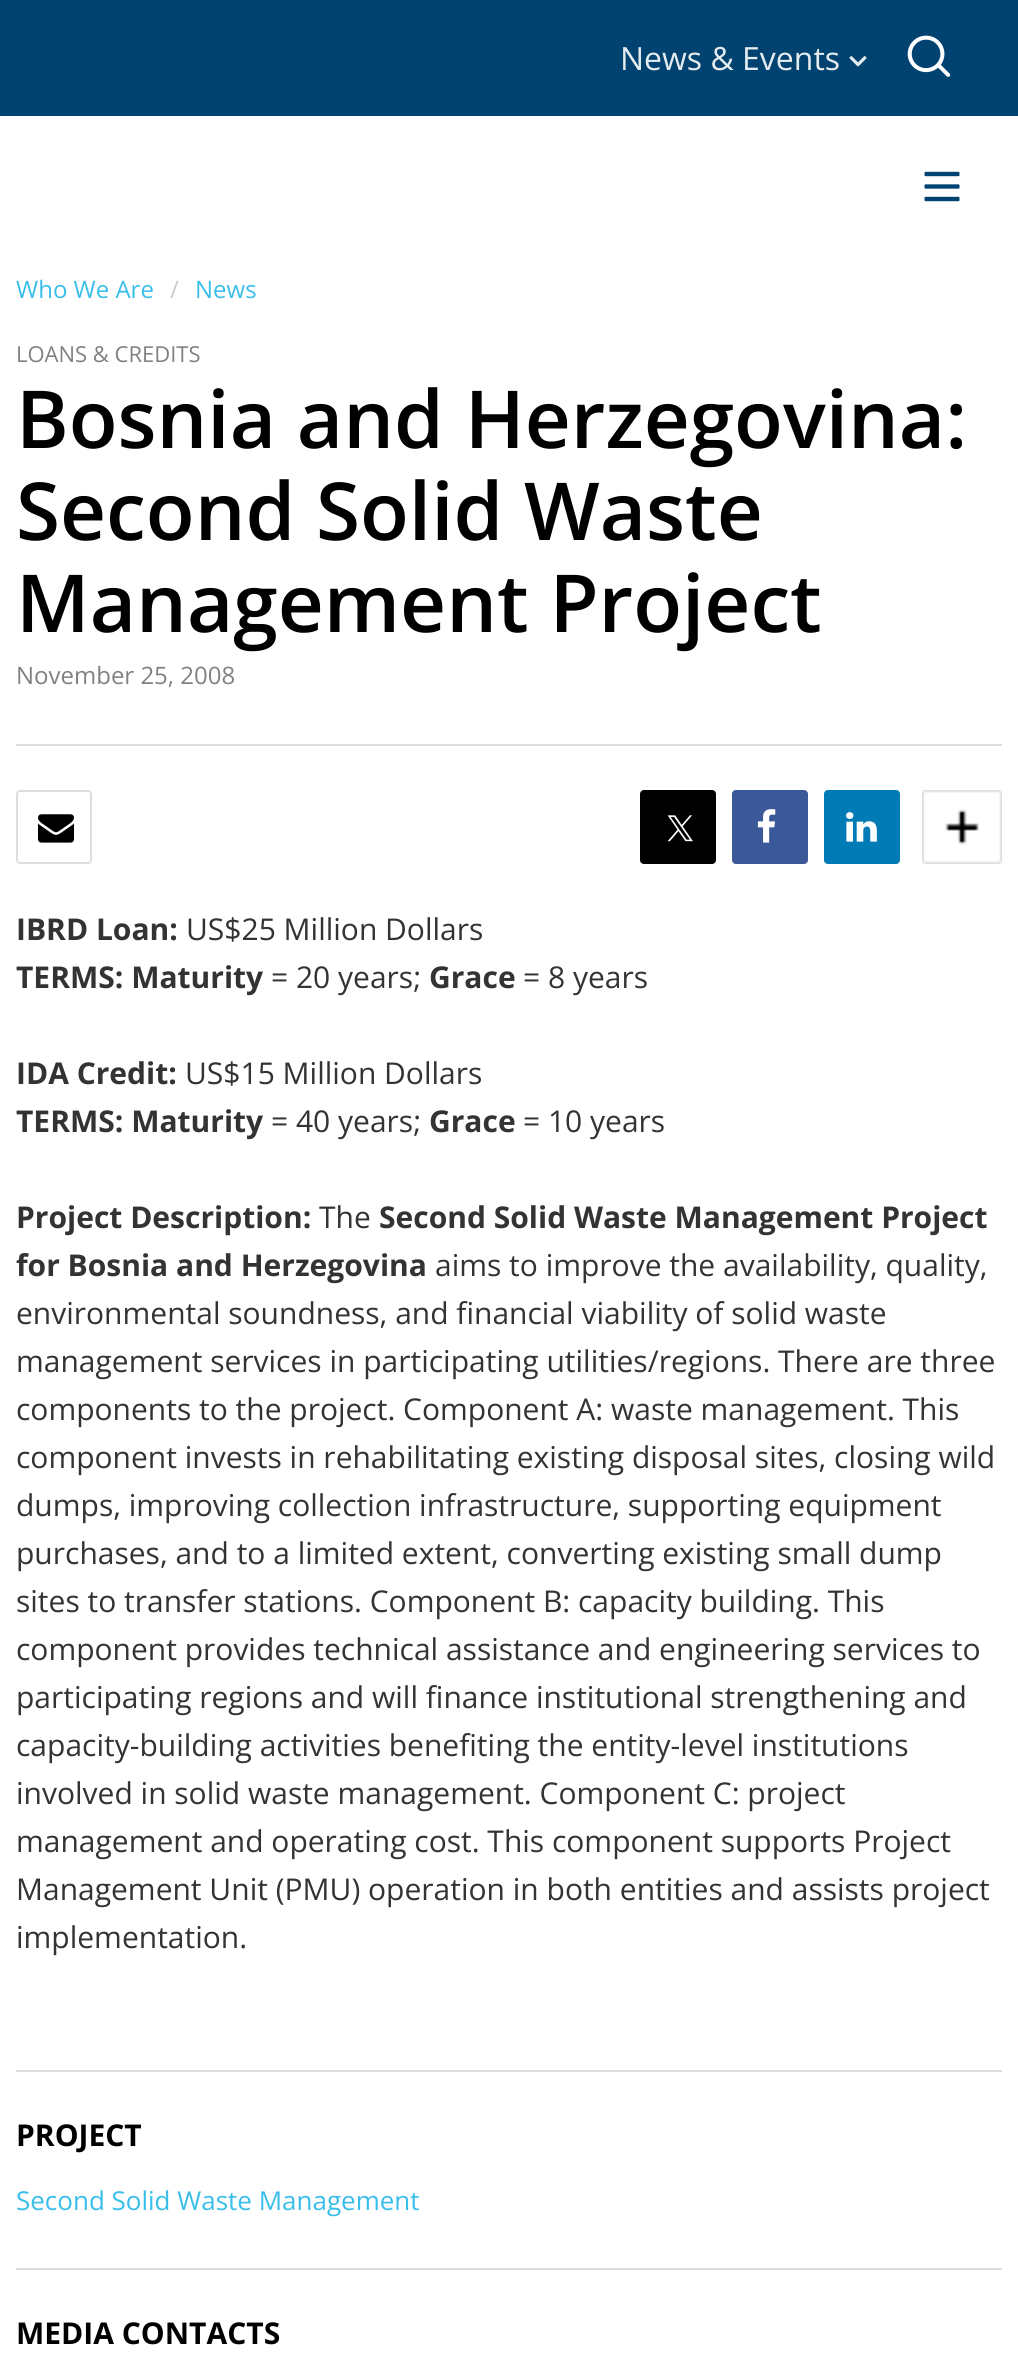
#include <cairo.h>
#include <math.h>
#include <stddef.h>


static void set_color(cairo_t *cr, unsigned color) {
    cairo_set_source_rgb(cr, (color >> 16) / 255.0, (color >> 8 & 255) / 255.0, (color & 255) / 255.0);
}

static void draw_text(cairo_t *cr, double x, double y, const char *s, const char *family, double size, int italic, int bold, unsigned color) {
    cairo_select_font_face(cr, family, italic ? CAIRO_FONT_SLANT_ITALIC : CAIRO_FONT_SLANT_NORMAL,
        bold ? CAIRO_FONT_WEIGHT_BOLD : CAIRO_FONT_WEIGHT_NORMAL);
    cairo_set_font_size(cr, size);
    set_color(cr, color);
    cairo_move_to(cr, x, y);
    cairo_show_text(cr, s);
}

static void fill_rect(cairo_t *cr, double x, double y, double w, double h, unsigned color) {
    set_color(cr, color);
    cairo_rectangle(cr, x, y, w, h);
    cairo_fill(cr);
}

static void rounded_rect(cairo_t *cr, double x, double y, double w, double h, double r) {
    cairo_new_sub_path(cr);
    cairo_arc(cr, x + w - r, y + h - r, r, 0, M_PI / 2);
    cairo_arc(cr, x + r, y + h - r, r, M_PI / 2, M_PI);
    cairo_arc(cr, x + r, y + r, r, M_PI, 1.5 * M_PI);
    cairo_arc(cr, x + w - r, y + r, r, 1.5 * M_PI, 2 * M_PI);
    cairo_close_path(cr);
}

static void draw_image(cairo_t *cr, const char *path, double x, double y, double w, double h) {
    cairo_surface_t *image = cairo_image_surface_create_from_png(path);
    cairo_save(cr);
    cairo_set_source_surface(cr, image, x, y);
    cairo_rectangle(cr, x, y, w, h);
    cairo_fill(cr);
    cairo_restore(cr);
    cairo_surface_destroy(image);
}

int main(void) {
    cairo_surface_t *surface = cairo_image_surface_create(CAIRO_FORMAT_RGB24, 1018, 2358);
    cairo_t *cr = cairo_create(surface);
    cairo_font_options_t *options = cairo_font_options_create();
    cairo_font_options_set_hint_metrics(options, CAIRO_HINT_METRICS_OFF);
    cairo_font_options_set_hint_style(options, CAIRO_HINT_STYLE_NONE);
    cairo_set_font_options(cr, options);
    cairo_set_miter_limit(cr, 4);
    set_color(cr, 0xFFFFFF);
    cairo_paint(cr);
    fill_rect(cr, 0, 0, 1018, 116, 0x004370);
    draw_text(cr, 620, 70, "News & Events", "Open Sans", 32, 0, 0, 0xE5ECF0);
    draw_image(cr, "assets/img1.png", 849, 56, 18, 11);
    draw_image(cr, "assets/img2.png", 907, 35, 44, 42);
    draw_image(cr, "assets/img3.png", 924, 171, 36, 31);
    draw_text(cr, 16, 298, "Who We Are", "Open Sans", 24, 0, 0, 0x39BEEA);
    draw_text(cr, 170, 298, "/", "Open Sans", 24, 0, 0, 0xCCCCCC);
    draw_text(cr, 195, 298, "News", "Open Sans", 24, 0, 0, 0x39BEEA);
    draw_text(cr, 16, 362, "LOANS & CREDITS", "Open Sans", 22, 0, 0, 0x818181);
    draw_text(cr, 16, 448, "Bosnia and Herzegovina:", "Open Sans SemiBold", 80, 0, 0, 0x000000);
    draw_text(cr, 16, 540, "Second Solid Waste", "Open Sans SemiBold", 80, 0, 0, 0x000000);
    draw_text(cr, 16, 632, "Management Project", "Open Sans SemiBold", 80, 0, 0, 0x000000);
    draw_text(cr, 16, 684, "November 25, 2008", "Open Sans", 24, 0, 0, 0x818181);
    fill_rect(cr, 16, 744, 986, 2, 0xDEDEDE);
    rounded_rect(cr, 17, 791, 74, 72, 3);
    cairo_stroke(cr);
    draw_image(cr, "assets/img4.png", 38, 814, 36, 29);
    set_color(cr, 0x000000);
    rounded_rect(cr, 640, 790, 76, 74, 4);
    cairo_fill(cr);
    draw_image(cr, "assets/img5.png", 667, 815, 26, 27);
    set_color(cr, 0x3B5998);
    rounded_rect(cr, 732, 790, 76, 74, 4);
    cairo_fill(cr);
    draw_image(cr, "assets/img6.png", 757, 809, 19, 34);
    set_color(cr, 0x007BB6);
    rounded_rect(cr, 824, 790, 76, 74, 4);
    cairo_fill(cr);
    draw_image(cr, "assets/img7.png", 846, 812, 31, 30);
    draw_image(cr, "assets/img8.png", 922, 790, 80, 74);
    draw_text(cr, 16, 940, "IBRD Loan:", "Open Sans", 30, 0, 1, 0x333333);
    draw_text(cr, 186, 940, "US$25 Million Dollars", "Open Sans", 30, 0, 0, 0x333333);
    draw_text(cr, 16, 988, "TERMS: Maturity", "Open Sans", 30, 0, 1, 0x333333);
    draw_text(cr, 271, 988, "= 20 years;", "Open Sans", 30, 0, 0, 0x333333);
    draw_text(cr, 429, 988, "Grace", "Open Sans", 30, 0, 1, 0x333333);
    draw_text(cr, 523, 988, "= 8 years", "Open Sans", 30, 0, 0, 0x333333);
    draw_text(cr, 16, 1084, "IDA Credit:", "Open Sans", 30, 0, 1, 0x333333);
    draw_text(cr, 185, 1084, "US$15 Million Dollars", "Open Sans", 30, 0, 0, 0x333333);
    draw_text(cr, 16, 1132, "TERMS: Maturity", "Open Sans", 30, 0, 1, 0x333333);
    draw_text(cr, 271, 1132, "= 40 years;", "Open Sans", 30, 0, 0, 0x333333);
    draw_text(cr, 429, 1132, "Grace", "Open Sans", 30, 0, 1, 0x333333);
    draw_text(cr, 523, 1132, "= 10 years", "Open Sans", 30, 0, 0, 0x333333);
    draw_text(cr, 16, 1228, "Project Description:", "Open Sans", 30, 0, 1, 0x333333);
    draw_text(cr, 319, 1228, "The", "Open Sans", 30, 0, 0, 0x333333);
    draw_text(cr, 379, 1228, "Second Solid Waste Management Project", "Open Sans", 30, 0, 1, 0x333333);
    draw_text(cr, 16, 1276, "for Bosnia and Herzegovina", "Open Sans", 30, 0, 1, 0x333333);
    draw_text(cr, 435, 1276, "aims to improve the availability, quality,", "Open Sans", 30, 0, 0, 0x333333);
    draw_text(cr, 16, 1324, "environmental soundness, and financial viability of solid waste", "Open Sans", 30, 0, 0, 0x333333);
    draw_text(cr, 16, 1372, "management services in participating utilities/regions. There are three", "Open Sans", 30, 0, 0, 0x333333);
    draw_text(cr, 16, 1420, "components to the project. Component A: waste management. This", "Open Sans", 30, 0, 0, 0x333333);
    draw_text(cr, 16, 1468, "component invests in rehabilitating existing disposal sites, closing wild", "Open Sans", 30, 0, 0, 0x333333);
    draw_text(cr, 16, 1516, "dumps, improving collection infrastructure, supporting equipment", "Open Sans", 30, 0, 0, 0x333333);
    draw_text(cr, 16, 1564, "purchases, and to a limited extent, converting existing small dump", "Open Sans", 30, 0, 0, 0x333333);
    draw_text(cr, 16, 1612, "sites to transfer stations. Component B: capacity building. This", "Open Sans", 30, 0, 0, 0x333333);
    draw_text(cr, 16, 1660, "component provides technical assistance and engineering services to", "Open Sans", 30, 0, 0, 0x333333);
    draw_text(cr, 16, 1708, "participating regions and will finance institutional strengthening and", "Open Sans", 30, 0, 0, 0x333333);
    draw_text(cr, 16, 1756, "capacity-building activities benefiting the entity-level institutions", "Open Sans", 30, 0, 0, 0x333333);
    draw_text(cr, 16, 1804, "involved in solid waste management. Component C: project", "Open Sans", 30, 0, 0, 0x333333);
    draw_text(cr, 16, 1852, "management and operating cost. This component supports Project", "Open Sans", 30, 0, 0, 0x333333);
    draw_text(cr, 16, 1900, "Management Unit (PMU) operation in both entities and assists project", "Open Sans", 30, 0, 0, 0x333333);
    draw_text(cr, 16, 1948, "implementation.", "Open Sans", 30, 0, 0, 0x333333);
    fill_rect(cr, 16, 2070, 986, 2, 0xDEDEDE);
    draw_text(cr, 16, 2146, "PROJECT", "Open Sans", 30, 0, 1, 0x000000);
    draw_text(cr, 16, 2210, "Second Solid Waste Management", "Open Sans", 26, 0, 0, 0x39BEEA);
    fill_rect(cr, 16, 2268, 986, 2, 0xDEDEDE);
    draw_text(cr, 16, 2344, "MEDIA CONTACTS", "Open Sans", 30, 0, 1, 0x000000);
    cairo_surface_write_to_png(surface, "output.png");
    cairo_font_options_destroy(options);
    cairo_destroy(cr);
    cairo_surface_destroy(surface);
    return 0;
}
